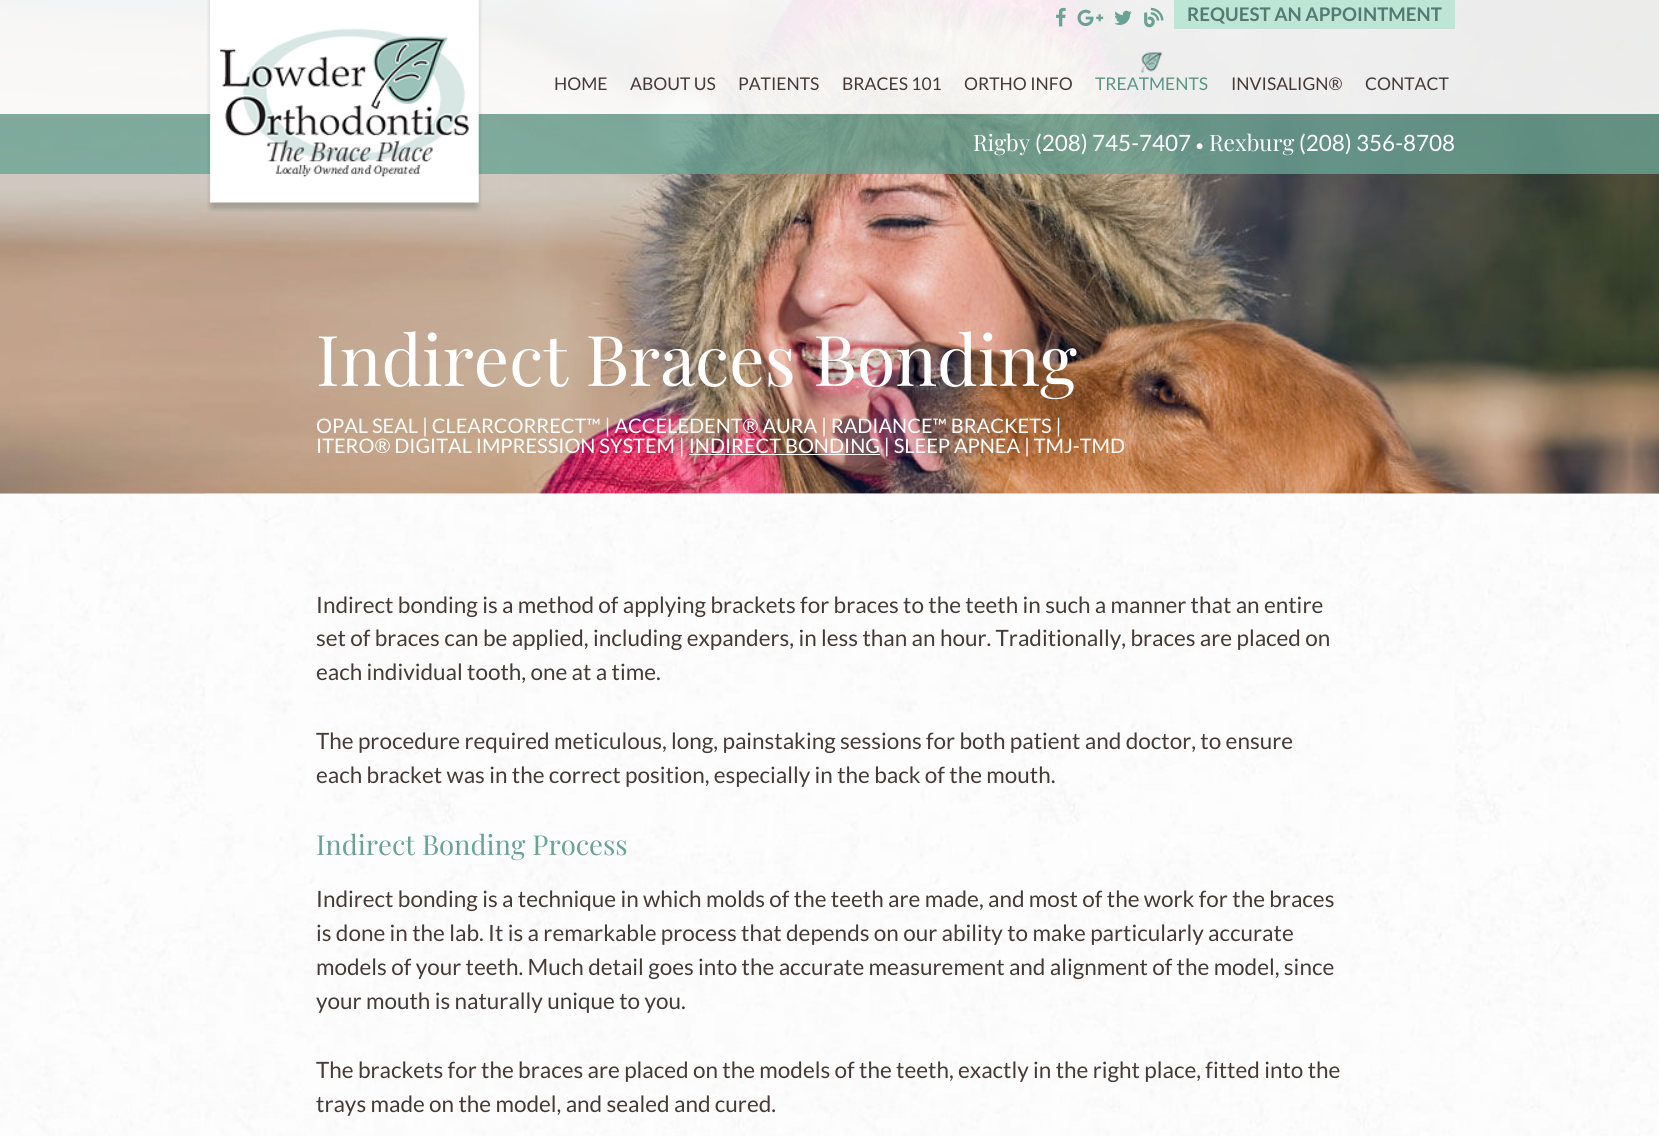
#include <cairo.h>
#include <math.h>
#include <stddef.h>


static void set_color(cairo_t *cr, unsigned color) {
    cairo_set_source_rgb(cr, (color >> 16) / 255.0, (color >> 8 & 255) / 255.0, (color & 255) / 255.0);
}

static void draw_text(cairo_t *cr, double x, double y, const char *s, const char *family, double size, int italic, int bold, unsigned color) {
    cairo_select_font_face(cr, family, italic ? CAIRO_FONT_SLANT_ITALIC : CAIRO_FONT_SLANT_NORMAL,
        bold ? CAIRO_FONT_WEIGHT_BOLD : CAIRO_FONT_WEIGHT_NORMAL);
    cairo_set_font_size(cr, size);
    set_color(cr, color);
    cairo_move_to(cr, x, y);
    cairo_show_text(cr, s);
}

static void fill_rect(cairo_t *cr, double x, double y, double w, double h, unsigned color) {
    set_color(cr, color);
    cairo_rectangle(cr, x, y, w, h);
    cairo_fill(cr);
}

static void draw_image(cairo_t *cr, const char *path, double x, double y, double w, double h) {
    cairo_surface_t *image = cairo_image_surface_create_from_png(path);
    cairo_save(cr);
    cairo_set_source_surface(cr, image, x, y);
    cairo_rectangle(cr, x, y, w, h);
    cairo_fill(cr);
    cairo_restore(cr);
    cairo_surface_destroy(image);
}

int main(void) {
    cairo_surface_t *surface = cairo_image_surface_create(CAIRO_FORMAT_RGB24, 1659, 1136);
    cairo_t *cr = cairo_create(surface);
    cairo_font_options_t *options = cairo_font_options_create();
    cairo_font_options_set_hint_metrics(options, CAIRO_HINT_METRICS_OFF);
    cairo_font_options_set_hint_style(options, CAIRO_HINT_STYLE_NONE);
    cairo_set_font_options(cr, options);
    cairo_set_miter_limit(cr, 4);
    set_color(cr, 0xFFFFFF);
    cairo_paint(cr);
    draw_image(cr, "assets/img8.png", 0, 0, 1659, 494);
    cairo_set_source_rgba(cr, 1, 1, 1, 0.9);
    cairo_rectangle(cr, 0, 0, 1659, 114);
    cairo_fill(cr);
    cairo_set_source_rgba(cr, 0.416, 0.635, 0.58, 0.8);
    cairo_rectangle(cr, 0, 114, 1659, 60);
    cairo_fill(cr);
    draw_image(cr, "assets/img1.png", 207, 0, 275, 212);
    draw_image(cr, "assets/img2.png", 1056, 7, 10, 20);
    draw_image(cr, "assets/img3.png", 1077, 9, 27, 17);
    draw_image(cr, "assets/img4.png", 1114, 10, 18, 15);
    draw_image(cr, "assets/img5.png", 1144, 7, 20, 21);
    fill_rect(cr, 1174, 0, 281, 29, 0xBEE6D7);
    draw_text(cr, 1187, 21, "REQUEST AN APPOINTMENT", "Lato", 18.75, 0, 1, 0x527B72);
    draw_text(cr, 554, 90, "HOME", "Lato", 17.5, 0, 0, 0x453A36);
    draw_text(cr, 630, 90, "ABOUT US", "Lato", 17.5, 0, 0, 0x453A36);
    draw_text(cr, 738, 90, "PATIENTS", "Lato", 17.5, 0, 0, 0x453A36);
    draw_text(cr, 842, 90, "BRACES 101", "Lato", 17.5, 0, 0, 0x453A36);
    draw_text(cr, 964, 90, "ORTHO INFO", "Lato", 17.5, 0, 0, 0x453A36);
    draw_image(cr, "assets/img6.png", 1141, 51, 22, 22);
    draw_text(cr, 1095, 90, "TREATMENTS", "Lato", 17.5, 0, 0, 0x5B9586);
    draw_text(cr, 1231, 90, "INVISALIGN®", "Lato", 17.5, 0, 0, 0x453A36);
    draw_text(cr, 1365, 90, "CONTACT", "Lato", 17.5, 0, 0, 0x453A36);
    draw_text(cr, 973, 151, "Rigby", "Playfair Display", 22.5, 0, 0, 0xFFFFFF);
    draw_text(cr, 1035, 151, "(208) 745-7407", "Lato", 22.5, 0, 0, 0xFFFFFF);
    draw_text(cr, 1195, 151, "•", "Lato", 16, 0, 0, 0xFFFFFF);
    draw_text(cr, 1209, 151, "Rexburg", "Playfair Display", 22.5, 0, 0, 0xFFFFFF);
    draw_text(cr, 1299, 151, "(208) 356-8708", "Lato", 22.5, 0, 0, 0xFFFFFF);
    draw_image(cr, "assets/img7.png", 0, 494, 1659, 642);
    draw_text(cr, 316, 386, "Indirect Braces Bonding", "Playfair Display", 70, 0, 0, 0xFFFFFF);
    draw_text(cr, 316, 433, "OPAL SEAL | CLEARCORRECT™ | ACCELEDENT® AURA | RADIANCE™ BRACKETS |", "Lato", 20, 0, 0, 0xFFFFFF);
    draw_text(cr, 316, 453, "ITERO® DIGITAL IMPRESSION SYSTEM | INDIRECT BONDING | SLEEP APNEA | TMJ-TMD", "Lato", 20, 0, 0, 0xFFFFFF);
    fill_rect(cr, 689, 454, 191, 1, 0xFFFFFF);
    draw_image(cr, "assets/img9.png", 205, 493, 1250, 643);
    draw_text(cr, 316, 613, "Indirect bonding is a method of applying brackets for braces to the teeth in such a manner that an entire", "Lato", 22.5, 0, 0, 0x453A36);
    draw_text(cr, 316, 646, "set of braces can be applied, including expanders, in less than an hour. Traditionally, braces are placed on", "Lato", 22.5, 0, 0, 0x453A36);
    draw_text(cr, 316, 680, "each individual tooth, one at a time.", "Lato", 22.5, 0, 0, 0x453A36);
    draw_text(cr, 316, 749, "The procedure required meticulous, long, painstaking sessions for both patient and doctor, to ensure", "Lato", 22.5, 0, 0, 0x453A36);
    draw_text(cr, 316, 783, "each bracket was in the correct position, especially in the back of the mouth.", "Lato", 22.5, 0, 0, 0x453A36);
    draw_text(cr, 316, 855, "Indirect Bonding Process", "Playfair Display", 27.5, 0, 0, 0x6AA294);
    draw_text(cr, 316, 907, "Indirect bonding is a technique in which molds of the teeth are made, and most of the work for the braces", "Lato", 22.5, 0, 0, 0x453A36);
    draw_text(cr, 316, 941, "is done in the lab. It is a remarkable process that depends on our ability to make particularly accurate", "Lato", 22.5, 0, 0, 0x453A36);
    draw_text(cr, 316, 975, "models of your teeth. Much detail goes into the accurate measurement and alignment of the model, since", "Lato", 22.5, 0, 0, 0x453A36);
    draw_text(cr, 316, 1009, "your mouth is naturally unique to you.", "Lato", 22.5, 0, 0, 0x453A36);
    draw_text(cr, 316, 1078, "The brackets for the braces are placed on the models of the teeth, exactly in the right place, fitted into the", "Lato", 22.5, 0, 0, 0x453A36);
    draw_text(cr, 316, 1112, "trays made on the model, and sealed and cured.", "Lato", 22.5, 0, 0, 0x453A36);
    cairo_surface_write_to_png(surface, "output.png");
    cairo_font_options_destroy(options);
    cairo_destroy(cr);
    cairo_surface_destroy(surface);
    return 0;
}
